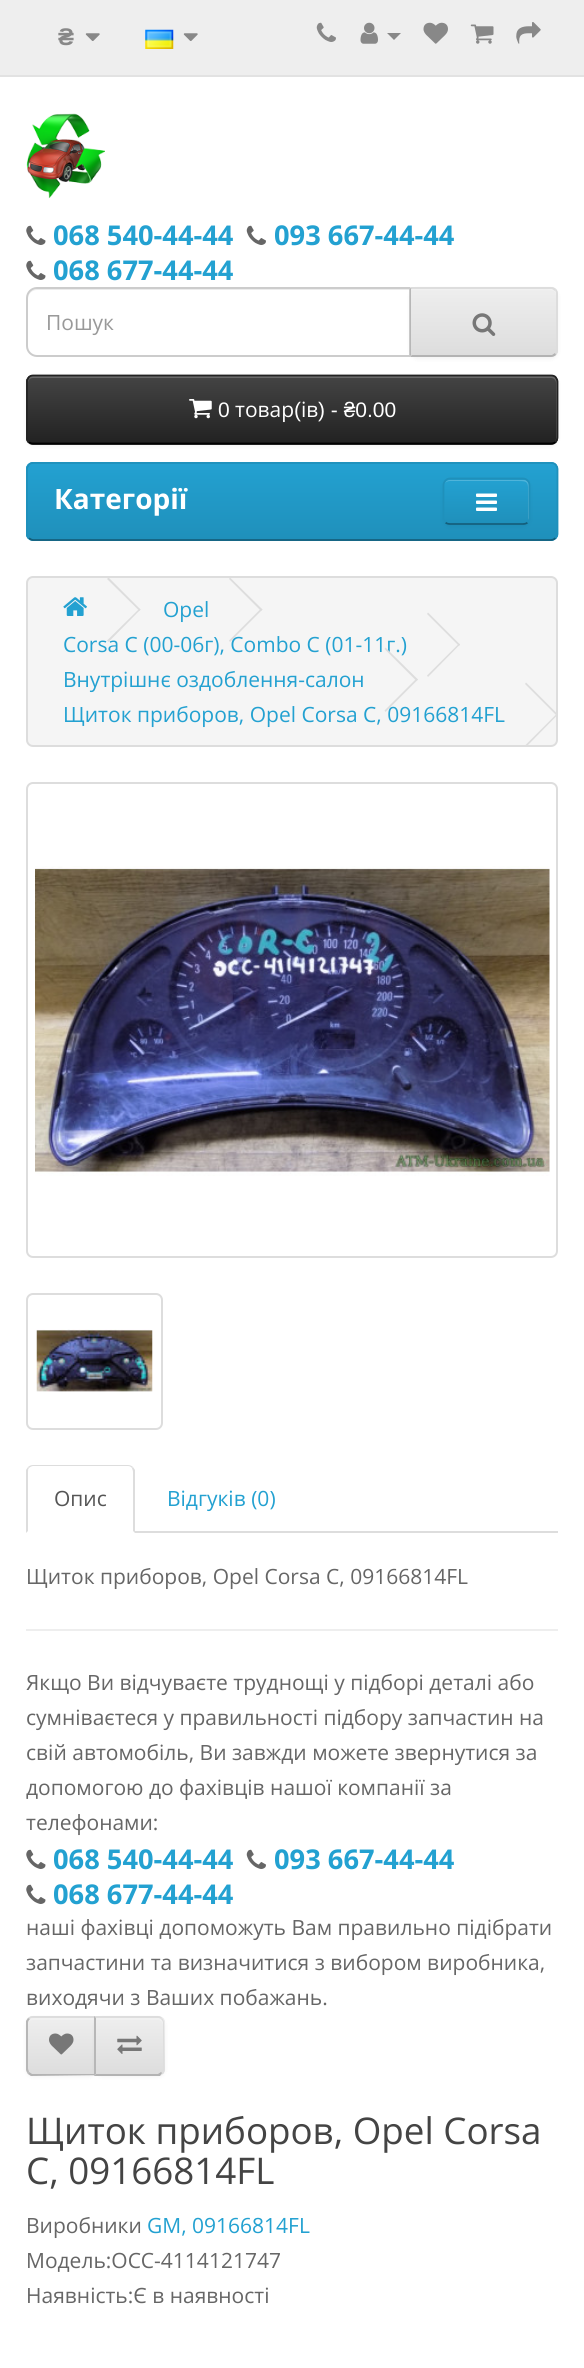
#include <cairo.h>
#include <math.h>
#include <stddef.h>


static void set_color(cairo_t *cr, unsigned color) {
    cairo_set_source_rgb(cr, (color >> 16) / 255.0, (color >> 8 & 255) / 255.0, (color & 255) / 255.0);
}

static void draw_text(cairo_t *cr, double x, double y, const char *s, const char *family, double size, int italic, int bold, unsigned color) {
    cairo_select_font_face(cr, family, italic ? CAIRO_FONT_SLANT_ITALIC : CAIRO_FONT_SLANT_NORMAL,
        bold ? CAIRO_FONT_WEIGHT_BOLD : CAIRO_FONT_WEIGHT_NORMAL);
    cairo_set_font_size(cr, size);
    set_color(cr, color);
    cairo_move_to(cr, x, y);
    cairo_show_text(cr, s);
}

static void fill_rect(cairo_t *cr, double x, double y, double w, double h, unsigned color) {
    set_color(cr, color);
    cairo_rectangle(cr, x, y, w, h);
    cairo_fill(cr);
}

static void rounded_rect(cairo_t *cr, double x, double y, double w, double h, double r) {
    cairo_new_sub_path(cr);
    cairo_arc(cr, x + w - r, y + h - r, r, 0, M_PI / 2);
    cairo_arc(cr, x + r, y + h - r, r, M_PI / 2, M_PI);
    cairo_arc(cr, x + r, y + r, r, M_PI, 1.5 * M_PI);
    cairo_arc(cr, x + w - r, y + r, r, 1.5 * M_PI, 2 * M_PI);
    cairo_close_path(cr);
}

static void draw_shadow(cairo_t *cr, double x, double y, double w, double h, double r, double blur, double alpha) {
    cairo_push_group_with_content(cr, CAIRO_CONTENT_ALPHA);
    cairo_set_operator(cr, CAIRO_OPERATOR_SOURCE);
    for (int i = 15; i >= -15 && fmin(w, h) + blur * i / 3 > 0; i -= 2) {
        double e = blur * i / 6;
        cairo_set_source_rgba(cr, 0, 0, 0, alpha * erfc((i - 1) / 8.5) / 2);
        rounded_rect(cr, x - e, y - e, w + 2 * e, h + 2 * e, fmax(0, fmin(r + e + blur * .6, fmin(w, h) / 2 + e)));
        cairo_fill(cr);
    }
    cairo_pattern_t *soft = cairo_pop_group(cr);
    cairo_mask(cr, soft);
    cairo_pattern_destroy(soft);
}

static void draw_image(cairo_t *cr, const char *path, double x, double y, double w, double h) {
    cairo_surface_t *image = cairo_image_surface_create_from_png(path);
    cairo_save(cr);
    cairo_set_source_surface(cr, image, x, y);
    cairo_rectangle(cr, x, y, w, h);
    cairo_fill(cr);
    cairo_restore(cr);
    cairo_surface_destroy(image);
}

int main(void) {
    cairo_surface_t *surface = cairo_image_surface_create(CAIRO_FORMAT_RGB24, 584, 2368);
    cairo_t *cr = cairo_create(surface);
    cairo_font_options_t *options = cairo_font_options_create();
    cairo_font_options_set_hint_metrics(options, CAIRO_HINT_METRICS_OFF);
    cairo_font_options_set_hint_style(options, CAIRO_HINT_STYLE_NONE);
    cairo_set_font_options(cr, options);
    cairo_set_miter_limit(cr, 4);
    cairo_pattern_t *gradient;
    set_color(cr, 0xFFFFFF);
    cairo_paint(cr);
    fill_rect(cr, 0, 0, 584, 75, 0xEEEEEE);
    fill_rect(cr, 0, 75, 584, 2, 0xE2E2E2);
    draw_text(cr, 58, 45, "₴", "Liberation Sans", 24, 0, 1, 0x888888);
    draw_image(cr, "assets/img1.png", 85, 33, 15, 8);
    draw_image(cr, "assets/img2.png", 145, 29, 29, 20);
    draw_image(cr, "assets/img1.png", 183, 33, 15, 8);
    draw_image(cr, "assets/img3.png", 316, 22, 20, 20);
    draw_image(cr, "assets/img4.png", 360, 22, 18, 22);
    cairo_new_path(cr);
    cairo_move_to(cr, 387, 33);
    cairo_line_to(cr, 401, 33);
    cairo_line_to(cr, 394, 40);
    cairo_close_path(cr);
    cairo_fill(cr);
    draw_image(cr, "assets/img5.png", 423, 22, 25, 22);
    draw_image(cr, "assets/img6.png", 470, 24, 24, 20);
    draw_image(cr, "assets/img7.png", 516, 22, 25, 22);
    draw_image(cr, "assets/img8.png", 26, 113, 79, 86);
    draw_image(cr, "assets/img9.png", 26, 225, 20, 20);
    draw_text(cr, 53, 245, "068 540-44-44", "Open Sans", 27.25, 0, 1, 0x23A1D1);
    draw_image(cr, "assets/img10.png", 246, 225, 20, 20);
    draw_text(cr, 274, 245, "093 667-44-44", "Open Sans", 27.25, 0, 1, 0x23A1D1);
    draw_image(cr, "assets/img9.png", 26, 260, 20, 20);
    draw_text(cr, 53, 280, "068 677-44-44", "Open Sans", 27.25, 0, 1, 0x23A1D1);
    set_color(cr, 0xECECEC);
    cairo_new_path(cr);
    cairo_move_to(cr, 37, 290);
    cairo_line_to(cr, 410, 290);
    cairo_line_to(cr, 410, 289);
    cairo_line_to(cr, 37, 289);
    cairo_curve_to(cr, 32, 289, 28, 293, 28, 298);
    cairo_line_to(cr, 28, 299);
    cairo_curve_to(cr, 28, 294, 32, 290, 37, 290);
    cairo_close_path(cr);
    cairo_fill(cr);
    cairo_new_path(cr);
    cairo_move_to(cr, 37, 288);
    cairo_line_to(cr, 410, 288);
    cairo_line_to(cr, 410, 356);
    cairo_line_to(cr, 37, 356);
    cairo_curve_to(cr, 31.5, 356, 27, 351.5, 27, 346);
    cairo_line_to(cr, 27, 298);
    cairo_curve_to(cr, 27, 292.5, 31.5, 288, 37, 288);
    cairo_close_path(cr);
    set_color(cr, 0xCCCCCC);
    cairo_stroke(cr);
    draw_text(cr, 46, 330, "Пошук", "Open Sans", 21, 0, 0, 0x999999);
    set_color(cr, 0x000000);
    draw_shadow(cr, 410, 289, 148, 70, 7, 2, 0.05);
    set_color(cr, 0xE7E7E7);
    cairo_new_path(cr);
    cairo_move_to(cr, 410, 287);
    cairo_line_to(cr, 551, 287);
    cairo_curve_to(cr, 555, 287, 558, 290, 558, 294);
    cairo_line_to(cr, 558, 350);
    cairo_curve_to(cr, 558, 354, 555, 357, 551, 357);
    cairo_line_to(cr, 410, 357);
    cairo_close_path(cr);
    cairo_fill(cr);
    cairo_save(cr);
    cairo_new_path(cr);
    cairo_move_to(cr, 410, 287);
    cairo_line_to(cr, 551, 287);
    cairo_curve_to(cr, 555, 287, 558, 290, 558, 294);
    cairo_line_to(cr, 558, 350);
    cairo_curve_to(cr, 558, 354, 555, 357, 551, 357);
    cairo_line_to(cr, 410, 357);
    cairo_close_path(cr);
    cairo_clip(cr);
    gradient = cairo_pattern_create_linear(484, 289, 484, 355);
    cairo_pattern_add_color_stop_rgba(gradient, 0, 0.933, 0.933, 0.933, 1);
    cairo_pattern_add_color_stop_rgba(gradient, 1, 0.867, 0.867, 0.867, 1);
    cairo_set_source(cr, gradient);
    cairo_pattern_destroy(gradient);
    cairo_rectangle(cr, 411, 289, 147, 66);
    cairo_fill(cr);
    cairo_restore(cr);
    cairo_set_source_rgba(cr, 1, 1, 1, 0.2);
    cairo_new_path(cr);
    cairo_move_to(cr, 411, 290);
    cairo_line_to(cr, 528, 290);
    cairo_curve_to(cr, 560, 290, 556, 285, 556, 315);
    cairo_line_to(cr, 556, 353);
    cairo_curve_to(cr, 557, 352, 557, 351, 557, 350);
    cairo_line_to(cr, 557, 294);
    cairo_curve_to(cr, 557, 291, 555, 289, 552, 289);
    cairo_line_to(cr, 411, 289);
    cairo_close_path(cr);
    cairo_fill(cr);
    set_color(cr, 0xDDDDDD);
    cairo_new_path(cr);
    cairo_move_to(cr, 410, 287);
    cairo_line_to(cr, 412, 289);
    cairo_line_to(cr, 552, 289);
    cairo_line_to(cr, 555, 291);
    cairo_line_to(cr, 556, 289);
    cairo_curve_to(cr, 555, 288, 553, 287, 551, 287);
    cairo_close_path(cr);
    cairo_fill(cr);
    cairo_new_path(cr);
    cairo_move_to(cr, 556, 289);
    cairo_curve_to(cr, 557, 290, 558, 292, 558, 294);
    cairo_line_to(cr, 558, 350);
    cairo_curve_to(cr, 558, 352, 557, 354, 556, 355);
    cairo_line_to(cr, 555, 353);
    cairo_curve_to(cr, 556, 353, 556, 351, 556, 350);
    cairo_line_to(cr, 556, 294);
    cairo_curve_to(cr, 556, 293, 556, 291, 555, 291);
    cairo_close_path(cr);
    cairo_fill(cr);
    set_color(cr, 0xB3B3B3);
    cairo_new_path(cr);
    cairo_move_to(cr, 410, 357);
    cairo_line_to(cr, 551, 357);
    cairo_curve_to(cr, 553, 357, 555, 356, 556, 355);
    cairo_line_to(cr, 555, 353);
    cairo_line_to(cr, 552, 355);
    cairo_line_to(cr, 412, 355);
    cairo_close_path(cr);
    cairo_fill(cr);
    set_color(cr, 0xB7B7B7);
    cairo_new_path(cr);
    cairo_move_to(cr, 411, 289);
    cairo_line_to(cr, 412, 289);
    cairo_line_to(cr, 410, 288);
    cairo_line_to(cr, 410, 356);
    cairo_line_to(cr, 412, 355);
    cairo_line_to(cr, 411, 355);
    cairo_close_path(cr);
    cairo_fill(cr);
    draw_image(cr, "assets/img11.png", 472, 313, 24, 23);
    set_color(cr, 0x000000);
    draw_shadow(cr, 26, 376, 532, 70, 7, 2, 0.05);
    set_color(cr, 0x363636);
    rounded_rect(cr, 26, 375, 532, 70, 7);
    cairo_fill(cr);
    cairo_save(cr);
    rounded_rect(cr, 26, 375, 532, 70, 7);
    cairo_clip(cr);
    gradient = cairo_pattern_create_linear(292, 376, 292, 443);
    cairo_pattern_add_color_stop_rgba(gradient, 0, 0.267, 0.267, 0.267, 1);
    cairo_pattern_add_color_stop_rgba(gradient, 1, 0.133, 0.133, 0.133, 1);
    cairo_set_source(cr, gradient);
    cairo_pattern_destroy(gradient);
    cairo_rectangle(cr, 26, 376, 532, 67);
    cairo_fill(cr);
    cairo_restore(cr);
    cairo_set_source_rgba(cr, 1, 1, 1, 0.2);
    cairo_new_path(cr);
    cairo_move_to(cr, 33, 378);
    cairo_line_to(cr, 551, 378);
    cairo_curve_to(cr, 554, 378, 556, 380, 556, 383);
    cairo_line_to(cr, 556, 439);
    cairo_line_to(cr, 555, 442);
    cairo_curve_to(cr, 556, 441, 557, 439, 557, 438);
    cairo_line_to(cr, 557, 381);
    cairo_curve_to(cr, 557, 378, 555, 376, 552, 376);
    cairo_line_to(cr, 33, 376);
    cairo_curve_to(cr, 30, 376, 28, 378, 28, 381);
    cairo_line_to(cr, 28, 383);
    cairo_curve_to(cr, 28, 380, 30, 378, 33, 378);
    cairo_close_path(cr);
    cairo_fill(cr);
    cairo_new_path(cr);
    cairo_move_to(cr, 555.5, 442);
    cairo_curve_to(cr, 554.5, 443, 553, 443.5, 551, 443.5);
    cairo_line_to(cr, 33, 443.5);
    cairo_curve_to(cr, 31.5, 443.5, 30, 443, 29, 442);
    set_color(cr, 0x000000);
    cairo_set_line_width(cr, 1.8);
    cairo_stroke(cr);
    cairo_new_path(cr);
    cairo_move_to(cr, 29, 442);
    cairo_curve_to(cr, 28, 440.5, 27, 439, 27, 437.5);
    cairo_line_to(cr, 27, 381.5);
    cairo_curve_to(cr, 27, 380, 28, 378.5, 29, 377);
    cairo_curve_to(cr, 30, 376, 31.5, 375.5, 33, 375.5);
    cairo_line_to(cr, 551, 375.5);
    cairo_curve_to(cr, 553, 375.5, 554.5, 376, 555.5, 377);
    cairo_curve_to(cr, 556.5, 378.5, 557.5, 380, 557.5, 381.5);
    cairo_line_to(cr, 557.5, 437.5);
    cairo_curve_to(cr, 557.5, 439, 556.5, 440.5, 555.5, 442);
    set_color(cr, 0x222222);
    cairo_stroke(cr);
    draw_image(cr, "assets/img12.png", 189, 399, 23, 20);
    draw_text(cr, 218, 417, "0", "Liberation Sans", 21, 0, 0, 0xFFFFFF);
    draw_text(cr, 235, 417, "товар", "Open Sans", 21, 0, 0, 0xFFFFFF);
    draw_text(cr, 294, 417, "(", "Liberation Sans", 21, 0, 0, 0xFFFFFF);
    draw_text(cr, 301, 417, "ів", "Open Sans", 21, 0, 0, 0xFFFFFF);
    draw_text(cr, 318, 417, ") - ₴0.00", "Liberation Sans", 21, 0, 0, 0xFFFFFF);
    set_color(cr, 0x229AC8);
    rounded_rect(cr, 26, 462, 532, 79, 7);
    cairo_fill(cr);
    cairo_save(cr);
    rounded_rect(cr, 26, 462, 532, 79, 7);
    cairo_clip(cr);
    gradient = cairo_pattern_create_linear(292, 464, 292, 539);
    cairo_pattern_add_color_stop_rgba(gradient, 0, 0.137, 0.631, 0.82, 1);
    cairo_pattern_add_color_stop_rgba(gradient, 1, 0.122, 0.565, 0.733, 1);
    cairo_set_source(cr, gradient);
    cairo_pattern_destroy(gradient);
    cairo_rectangle(cr, 26, 464, 532, 75);
    cairo_fill(cr);
    cairo_restore(cr);
    cairo_new_path(cr);
    cairo_move_to(cr, 555.5, 538);
    cairo_curve_to(cr, 554.5, 539, 553, 540, 551, 540);
    cairo_line_to(cr, 33, 540);
    cairo_curve_to(cr, 31.5, 540, 30, 539, 29, 538);
    set_color(cr, 0x145E7A);
    cairo_stroke(cr);
    cairo_new_path(cr);
    cairo_move_to(cr, 29, 538);
    cairo_curve_to(cr, 28, 537, 27, 535.5, 27, 534);
    cairo_line_to(cr, 27, 469);
    cairo_curve_to(cr, 27, 467.5, 28, 466, 29, 464.5);
    cairo_curve_to(cr, 30, 463.5, 31.5, 463, 33, 463);
    cairo_line_to(cr, 551, 463);
    cairo_curve_to(cr, 553, 463, 554.5, 463.5, 555.5, 464.5);
    cairo_curve_to(cr, 556.5, 466, 557.5, 467.5, 557.5, 469);
    cairo_line_to(cr, 557.5, 534);
    cairo_curve_to(cr, 557.5, 535.5, 556.5, 537, 555.5, 538);
    set_color(cr, 0x1F90BB);
    cairo_stroke(cr);
    draw_text(cr, 54, 509, "Категорії", "Open Sans", 28, 0, 1, 0xFFFFFF);
    set_color(cr, 0x000000);
    draw_shadow(cr, 443, 480, 87, 47, 7, 2, 0.05);
    set_color(cr, 0x229AC8);
    rounded_rect(cr, 443, 478, 87, 47, 7);
    cairo_fill(cr);
    cairo_save(cr);
    rounded_rect(cr, 443, 478, 87, 47, 7);
    cairo_clip(cr);
    gradient = cairo_pattern_create_linear(487, 480, 487, 523);
    cairo_pattern_add_color_stop_rgba(gradient, 0, 0.137, 0.631, 0.82, 1);
    cairo_pattern_add_color_stop_rgba(gradient, 1, 0.122, 0.565, 0.733, 1);
    cairo_set_source(cr, gradient);
    cairo_pattern_destroy(gradient);
    cairo_rectangle(cr, 443, 480, 87, 43);
    cairo_fill(cr);
    cairo_restore(cr);
    cairo_set_source_rgba(cr, 1, 1, 1, 0.2);
    cairo_new_path(cr);
    cairo_move_to(cr, 450, 481);
    cairo_line_to(cr, 511, 481);
    cairo_curve_to(cr, 530, 481, 528, 480, 528, 497);
    cairo_line_to(cr, 528, 521);
    cairo_curve_to(cr, 529, 520, 529, 519, 529, 518);
    cairo_line_to(cr, 529, 485);
    cairo_curve_to(cr, 529, 482, 527, 480, 524, 480);
    cairo_line_to(cr, 450, 480);
    cairo_curve_to(cr, 448, 480, 446, 481, 445, 483);
    cairo_curve_to(cr, 446, 482, 448, 481, 450, 481);
    cairo_close_path(cr);
    cairo_fill(cr);
    cairo_new_path(cr);
    cairo_move_to(cr, 527.5, 522.5);
    cairo_curve_to(cr, 526.5, 523.5, 525, 524, 523, 524);
    cairo_line_to(cr, 450, 524);
    cairo_curve_to(cr, 448, 524, 446.5, 523.5, 445.5, 522.5);
    set_color(cr, 0x145E7A);
    cairo_stroke(cr);
    cairo_new_path(cr);
    cairo_move_to(cr, 445.5, 522.5);
    cairo_curve_to(cr, 444.5, 521, 443.5, 519.5, 443.5, 518);
    cairo_line_to(cr, 443.5, 485);
    cairo_curve_to(cr, 443.5, 483, 444.5, 481.5, 445.5, 480.5);
    cairo_curve_to(cr, 446.5, 479.5, 448, 478.5, 450, 478.5);
    cairo_line_to(cr, 523, 478.5);
    cairo_curve_to(cr, 525, 478.5, 526.5, 479.5, 527.5, 480.5);
    cairo_curve_to(cr, 528.5, 481.5, 529.5, 483, 529.5, 485);
    cairo_line_to(cr, 529.5, 518);
    cairo_curve_to(cr, 529.5, 519.5, 528.5, 521, 527.5, 522.5);
    set_color(cr, 0x1F90BB);
    cairo_stroke(cr);
    draw_image(cr, "assets/img13.png", 476, 493, 21, 18);
    set_color(cr, 0xF5F5F5);
    rounded_rect(cr, 27, 577, 530, 169, 6);
    cairo_fill_preserve(cr);
    set_color(cr, 0xDDDDDD);
    cairo_set_line_width(cr, 2);
    cairo_stroke(cr);
    draw_image(cr, "assets/img14.png", 63, 597, 24, 19);
    cairo_new_path(cr);
    cairo_move_to(cr, 107, 579);
    cairo_line_to(cr, 108.5, 577.5);
    cairo_line_to(cr, 140.5, 609.5);
    cairo_line_to(cr, 139.5, 611);
    cairo_close_path(cr);
    cairo_fill(cr);
    cairo_new_path(cr);
    cairo_move_to(cr, 107, 640.5);
    cairo_line_to(cr, 139.5, 608.5);
    cairo_line_to(cr, 140.5, 609.5);
    cairo_line_to(cr, 108.5, 642);
    cairo_close_path(cr);
    cairo_fill(cr);
    draw_text(cr, 163, 617, "Opel", "Open Sans", 21, 0, 0, 0x23A1D1);
    set_color(cr, 0xDDDDDD);
    cairo_new_path(cr);
    cairo_move_to(cr, 229, 579);
    cairo_line_to(cr, 230, 577.5);
    cairo_line_to(cr, 262.5, 609.5);
    cairo_line_to(cr, 261, 611);
    cairo_close_path(cr);
    cairo_fill(cr);
    cairo_new_path(cr);
    cairo_move_to(cr, 229, 640.5);
    cairo_line_to(cr, 261, 608.5);
    cairo_line_to(cr, 262.5, 609.5);
    cairo_line_to(cr, 230, 642);
    cairo_close_path(cr);
    cairo_fill(cr);
    draw_text(cr, 63, 652, "Corsa С (00-06г), Combo C (01-11г.)", "Open Sans", 21, 0, 0, 0x23A1D1);
    set_color(cr, 0xDDDDDD);
    cairo_new_path(cr);
    cairo_move_to(cr, 427, 614);
    cairo_line_to(cr, 428, 612.5);
    cairo_line_to(cr, 460, 644.5);
    cairo_line_to(cr, 459, 646);
    cairo_close_path(cr);
    cairo_fill(cr);
    cairo_new_path(cr);
    cairo_move_to(cr, 427, 675.5);
    cairo_line_to(cr, 459, 643.5);
    cairo_line_to(cr, 460, 644.5);
    cairo_line_to(cr, 428, 677);
    cairo_close_path(cr);
    cairo_fill(cr);
    draw_text(cr, 63, 687, "Внутрішнє оздоблення-салон", "Open Sans", 21, 0, 0, 0x23A1D1);
    set_color(cr, 0xDDDDDD);
    cairo_new_path(cr);
    cairo_move_to(cr, 384.5, 649);
    cairo_line_to(cr, 385.5, 647.5);
    cairo_line_to(cr, 418, 679.5);
    cairo_line_to(cr, 416.5, 681);
    cairo_close_path(cr);
    cairo_fill(cr);
    cairo_new_path(cr);
    cairo_move_to(cr, 384.5, 710.5);
    cairo_line_to(cr, 416.5, 678.5);
    cairo_line_to(cr, 418, 679.5);
    cairo_line_to(cr, 385.5, 712);
    cairo_close_path(cr);
    cairo_fill(cr);
    draw_text(cr, 63, 722, "Щиток приборов, Opel Corsa C, 09166814FL", "Open Sans", 21, 0, 0, 0x23A1D1);
    set_color(cr, 0xDDDDDD);
    cairo_new_path(cr);
    cairo_move_to(cr, 525, 684);
    cairo_line_to(cr, 526, 682.5);
    cairo_line_to(cr, 558, 714.5);
    cairo_line_to(cr, 557, 716);
    cairo_close_path(cr);
    cairo_fill(cr);
    cairo_new_path(cr);
    cairo_move_to(cr, 525, 745.5);
    cairo_line_to(cr, 557, 713.5);
    cairo_line_to(cr, 558, 714.5);
    cairo_line_to(cr, 526, 747);
    cairo_close_path(cr);
    cairo_fill(cr);
    rounded_rect(cr, 27, 783, 530, 474, 6);
    cairo_stroke(cr);
    draw_image(cr, "assets/img15.png", 35, 866, 515, 310);
    rounded_rect(cr, 27, 1294, 135, 135, 6);
    cairo_stroke(cr);
    draw_image(cr, "assets/img16.png", 36, 1329, 117, 63);
    fill_rect(cr, 135, 1531, 423, 2, 0xDDDDDD);
    cairo_new_path(cr);
    cairo_move_to(cr, 33, 1465);
    cairo_curve_to(cr, 31, 1465, 29, 1466, 28, 1467);
    cairo_line_to(cr, 29, 1468);
    cairo_curve_to(cr, 30, 1467, 32, 1466, 33, 1466);
    cairo_line_to(cr, 128, 1466);
    cairo_curve_to(cr, 130, 1466, 131, 1467, 132, 1468);
    cairo_line_to(cr, 133, 1467);
    cairo_curve_to(cr, 132, 1466, 130, 1465, 128, 1465);
    cairo_close_path(cr);
    cairo_fill(cr);
    cairo_new_path(cr);
    cairo_move_to(cr, 133, 1467);
    cairo_line_to(cr, 135, 1470);
    cairo_line_to(cr, 135, 1533);
    cairo_line_to(cr, 133, 1531);
    cairo_line_to(cr, 133, 1472);
    cairo_curve_to(cr, 133, 1470, 132, 1469, 132, 1468);
    cairo_close_path(cr);
    cairo_fill(cr);
    cairo_new_path(cr);
    cairo_move_to(cr, 26, 1533);
    cairo_line_to(cr, 28, 1531);
    cairo_line_to(cr, 28, 1472);
    cairo_curve_to(cr, 28, 1470, 28, 1469, 29, 1468);
    cairo_line_to(cr, 28, 1467);
    cairo_line_to(cr, 26, 1470);
    cairo_close_path(cr);
    cairo_fill(cr);
    draw_text(cr, 54, 1506, "Опис", "Open Sans", 21, 0, 0, 0x555555);
    draw_text(cr, 167, 1506, "Відгуків (0)", "Open Sans", 21, 0, 0, 0x23A1D1);
    draw_text(cr, 26, 1584, "Щиток приборов, Opel Corsa C, 09166814FL", "Open Sans", 21, 0, 0, 0x666666);
    fill_rect(cr, 26, 1629, 532, 2, 0xEEEEEE);
    draw_text(cr, 26, 1690, "Якщо Ви відчуваєте труднощі у підборі деталі або", "Open Sans", 21, 0, 0, 0x666666);
    draw_text(cr, 26, 1725, "сумніваєтеся у правильності підбору запчастин на", "Open Sans", 21, 0, 0, 0x666666);
    draw_text(cr, 26, 1760, "свій автомобіль, Ви завжди можете звернутися за", "Open Sans", 21, 0, 0, 0x666666);
    draw_text(cr, 26, 1795, "допомогою до фахівців нашої компанії за", "Open Sans", 21, 0, 0, 0x666666);
    draw_text(cr, 26, 1830, "телефонами:", "Open Sans", 21, 0, 0, 0x666666);
    draw_image(cr, "assets/img9.png", 26, 1849, 20, 20);
    draw_text(cr, 53, 1869, "068 540-44-44", "Open Sans", 27.25, 0, 1, 0x23A1D1);
    draw_image(cr, "assets/img10.png", 246, 1849, 20, 20);
    draw_text(cr, 274, 1869, "093 667-44-44", "Open Sans", 27.25, 0, 1, 0x23A1D1);
    draw_image(cr, "assets/img9.png", 26, 1884, 20, 20);
    draw_text(cr, 53, 1904, "068 677-44-44", "Open Sans", 27.25, 0, 1, 0x23A1D1);
    draw_text(cr, 26, 1935, "наші фахівці допоможуть Вам правильно підібрати", "Open Sans", 21, 0, 0, 0x666666);
    draw_text(cr, 26, 1970, "запчастини та визначитися з вибором виробника,", "Open Sans", 21, 0, 0, 0x666666);
    draw_text(cr, 26, 2005, "виходячи з Ваших побажань.", "Open Sans", 21, 0, 0, 0x666666);
    set_color(cr, 0x000000);
    draw_shadow(cr, 26, 2018, 70, 59, 7, 2, 0.05);
    set_color(cr, 0xE7E7E7);
    cairo_new_path(cr);
    cairo_move_to(cr, 33, 2016);
    cairo_line_to(cr, 96, 2016);
    cairo_line_to(cr, 96, 2076);
    cairo_line_to(cr, 33, 2076);
    cairo_curve_to(cr, 29, 2076, 26, 2073, 26, 2069);
    cairo_line_to(cr, 26, 2023);
    cairo_curve_to(cr, 26, 2019, 29, 2016, 33, 2016);
    cairo_close_path(cr);
    cairo_fill(cr);
    cairo_save(cr);
    cairo_new_path(cr);
    cairo_move_to(cr, 33, 2016);
    cairo_line_to(cr, 96, 2016);
    cairo_line_to(cr, 96, 2076);
    cairo_line_to(cr, 33, 2076);
    cairo_curve_to(cr, 29, 2076, 26, 2073, 26, 2069);
    cairo_line_to(cr, 26, 2023);
    cairo_curve_to(cr, 26, 2019, 29, 2016, 33, 2016);
    cairo_close_path(cr);
    cairo_clip(cr);
    gradient = cairo_pattern_create_linear(61, 2018, 61, 2074);
    cairo_pattern_add_color_stop_rgba(gradient, 0, 0.933, 0.933, 0.933, 1);
    cairo_pattern_add_color_stop_rgba(gradient, 1, 0.867, 0.867, 0.867, 1);
    cairo_set_source(cr, gradient);
    cairo_pattern_destroy(gradient);
    cairo_rectangle(cr, 26, 2018, 68, 56);
    cairo_fill(cr);
    cairo_restore(cr);
    cairo_set_source_rgba(cr, 1, 1, 1, 0.2);
    cairo_new_path(cr);
    cairo_move_to(cr, 33, 2020);
    cairo_line_to(cr, 94, 2020);
    cairo_line_to(cr, 94, 2074);
    cairo_line_to(cr, 95, 2074);
    cairo_line_to(cr, 95, 2018);
    cairo_line_to(cr, 33, 2018);
    cairo_curve_to(cr, 30, 2018, 28, 2020, 28, 2023);
    cairo_line_to(cr, 28, 2025);
    cairo_curve_to(cr, 28, 2022, 30, 2020, 33, 2020);
    cairo_close_path(cr);
    cairo_fill(cr);
    set_color(cr, 0xDDDDDD);
    cairo_new_path(cr);
    cairo_move_to(cr, 33, 2016);
    cairo_curve_to(cr, 31, 2016, 29, 2017, 28, 2018);
    cairo_line_to(cr, 30, 2019);
    cairo_curve_to(cr, 30, 2018, 32, 2018, 33, 2018);
    cairo_line_to(cr, 94, 2018);
    cairo_line_to(cr, 96, 2016);
    cairo_close_path(cr);
    cairo_fill(cr);
    set_color(cr, 0xB3B3B3);
    cairo_new_path(cr);
    cairo_move_to(cr, 31, 2076);
    cairo_line_to(cr, 28, 2074);
    cairo_line_to(cr, 29, 2072);
    cairo_line_to(cr, 32, 2074);
    cairo_line_to(cr, 94, 2074);
    cairo_line_to(cr, 94, 2073);
    cairo_line_to(cr, 96, 2075);
    cairo_close_path(cr);
    cairo_fill(cr);
    set_color(cr, 0xB7B7B7);
    cairo_new_path(cr);
    cairo_move_to(cr, 26, 2021);
    cairo_line_to(cr, 28, 2018);
    cairo_line_to(cr, 30, 2019);
    cairo_curve_to(cr, 29, 2020, 28, 2021, 28, 2023);
    cairo_line_to(cr, 28, 2068);
    cairo_curve_to(cr, 28, 2070, 29, 2071, 29, 2072);
    cairo_line_to(cr, 28, 2074);
    cairo_line_to(cr, 26, 2070);
    cairo_close_path(cr);
    cairo_fill(cr);
    draw_image(cr, "assets/img17.png", 49, 2033, 25, 22);
    set_color(cr, 0x000000);
    draw_shadow(cr, 95, 2018, 70, 59, 7, 2, 0.05);
    set_color(cr, 0xE7E7E7);
    cairo_new_path(cr);
    cairo_move_to(cr, 95, 2016);
    cairo_line_to(cr, 158, 2016);
    cairo_curve_to(cr, 162, 2016, 165, 2019, 165, 2023);
    cairo_line_to(cr, 165, 2069);
    cairo_curve_to(cr, 165, 2073, 162, 2076, 158, 2076);
    cairo_line_to(cr, 95, 2076);
    cairo_close_path(cr);
    cairo_fill(cr);
    cairo_save(cr);
    cairo_new_path(cr);
    cairo_move_to(cr, 95, 2016);
    cairo_line_to(cr, 158, 2016);
    cairo_curve_to(cr, 162, 2016, 165, 2019, 165, 2023);
    cairo_line_to(cr, 165, 2069);
    cairo_curve_to(cr, 165, 2073, 162, 2076, 158, 2076);
    cairo_line_to(cr, 95, 2076);
    cairo_close_path(cr);
    cairo_clip(cr);
    gradient = cairo_pattern_create_linear(130, 2018, 130, 2074);
    cairo_pattern_add_color_stop_rgba(gradient, 0, 0.933, 0.933, 0.933, 1);
    cairo_pattern_add_color_stop_rgba(gradient, 1, 0.867, 0.867, 0.867, 1);
    cairo_set_source(cr, gradient);
    cairo_pattern_destroy(gradient);
    cairo_rectangle(cr, 96, 2018, 69, 56);
    cairo_fill(cr);
    cairo_restore(cr);
    set_color(cr, 0xF1F1F1);
    cairo_new_path(cr);
    cairo_move_to(cr, 96, 2020);
    cairo_line_to(cr, 158, 2020);
    cairo_curve_to(cr, 160, 2020, 163, 2022, 163, 2025);
    cairo_line_to(cr, 163, 2023);
    cairo_curve_to(cr, 163, 2020, 161, 2018, 158, 2018);
    cairo_line_to(cr, 96, 2018);
    cairo_close_path(cr);
    cairo_fill(cr);
    set_color(cr, 0xDDDDDD);
    cairo_new_path(cr);
    cairo_move_to(cr, 94, 2016);
    cairo_line_to(cr, 96, 2018);
    cairo_line_to(cr, 158, 2018);
    cairo_curve_to(cr, 159, 2018, 160, 2018, 161, 2019);
    cairo_line_to(cr, 162, 2018);
    cairo_curve_to(cr, 161, 2017, 160, 2016, 158, 2016);
    cairo_close_path(cr);
    cairo_fill(cr);
    cairo_new_path(cr);
    cairo_move_to(cr, 162, 2018);
    cairo_curve_to(cr, 163, 2019, 164, 2021, 164, 2023);
    cairo_line_to(cr, 164, 2068);
    cairo_curve_to(cr, 164, 2070, 163, 2072, 162, 2073);
    cairo_line_to(cr, 161, 2072);
    cairo_curve_to(cr, 162, 2071, 163, 2070, 163, 2068);
    cairo_line_to(cr, 163, 2023);
    cairo_curve_to(cr, 163, 2021, 162, 2020, 161, 2019);
    cairo_close_path(cr);
    cairo_fill(cr);
    set_color(cr, 0xB3B3B3);
    cairo_new_path(cr);
    cairo_move_to(cr, 162, 2073);
    cairo_line_to(cr, 160, 2076);
    cairo_line_to(cr, 94, 2076);
    cairo_line_to(cr, 96, 2074);
    cairo_line_to(cr, 158, 2074);
    cairo_line_to(cr, 161, 2072);
    cairo_close_path(cr);
    cairo_fill(cr);
    set_color(cr, 0xB7B7B7);
    cairo_new_path(cr);
    cairo_move_to(cr, 96, 2018);
    cairo_line_to(cr, 94, 2016);
    cairo_line_to(cr, 94, 2076);
    cairo_line_to(cr, 96, 2074);
    cairo_close_path(cr);
    cairo_fill(cr);
    draw_image(cr, "assets/img18.png", 117, 2035, 25, 19);
    draw_text(cr, 26, 2144, "Щиток приборов, Opel Corsa", "Open Sans", 36.75, 0, 0, 0x444444);
    draw_text(cr, 26, 2184, "C, 09166814FL", "Open Sans", 36.75, 0, 0, 0x444444);
    draw_text(cr, 26, 2233, "Виробники", "Open Sans", 21, 0, 0, 0x666666);
    draw_text(cr, 147, 2233, "GM, 09166814FL", "Open Sans", 21, 0, 0, 0x23A1D1);
    draw_text(cr, 26, 2268, "Модель:OCC-4114121747", "Open Sans", 21, 0, 0, 0x666666);
    draw_text(cr, 26, 2303, "Наявність:Є в наявності", "Open Sans", 21, 0, 0, 0x666666);
    cairo_surface_write_to_png(surface, "output.png");
    cairo_font_options_destroy(options);
    cairo_destroy(cr);
    cairo_surface_destroy(surface);
    return 0;
}
